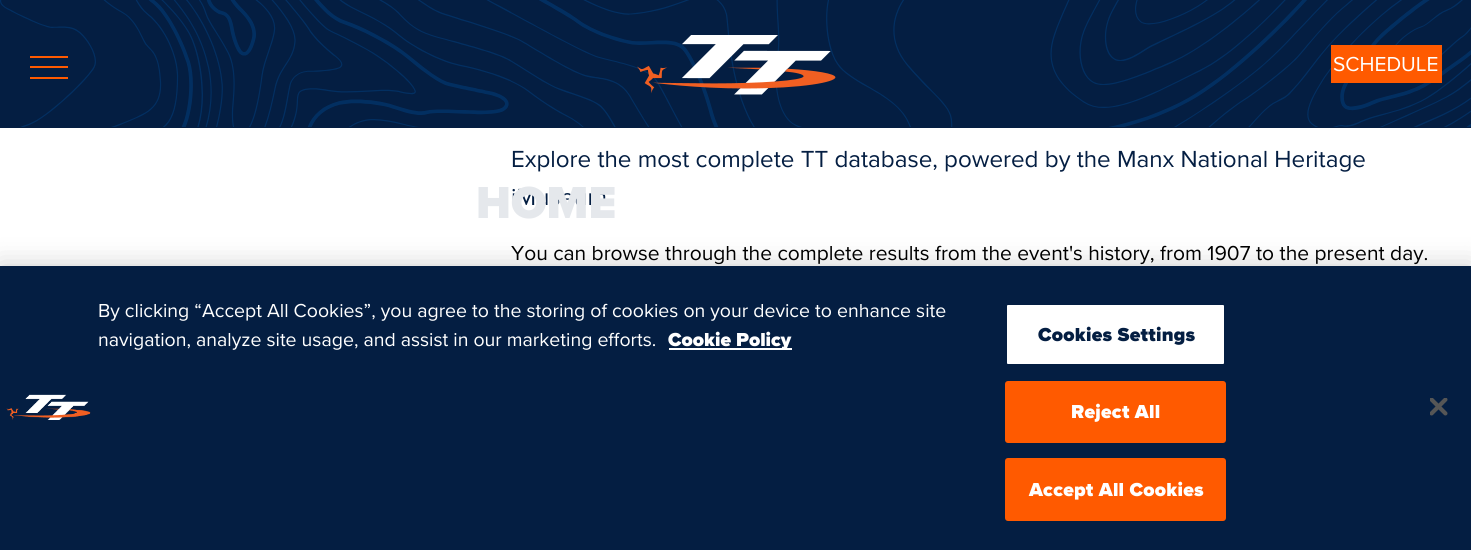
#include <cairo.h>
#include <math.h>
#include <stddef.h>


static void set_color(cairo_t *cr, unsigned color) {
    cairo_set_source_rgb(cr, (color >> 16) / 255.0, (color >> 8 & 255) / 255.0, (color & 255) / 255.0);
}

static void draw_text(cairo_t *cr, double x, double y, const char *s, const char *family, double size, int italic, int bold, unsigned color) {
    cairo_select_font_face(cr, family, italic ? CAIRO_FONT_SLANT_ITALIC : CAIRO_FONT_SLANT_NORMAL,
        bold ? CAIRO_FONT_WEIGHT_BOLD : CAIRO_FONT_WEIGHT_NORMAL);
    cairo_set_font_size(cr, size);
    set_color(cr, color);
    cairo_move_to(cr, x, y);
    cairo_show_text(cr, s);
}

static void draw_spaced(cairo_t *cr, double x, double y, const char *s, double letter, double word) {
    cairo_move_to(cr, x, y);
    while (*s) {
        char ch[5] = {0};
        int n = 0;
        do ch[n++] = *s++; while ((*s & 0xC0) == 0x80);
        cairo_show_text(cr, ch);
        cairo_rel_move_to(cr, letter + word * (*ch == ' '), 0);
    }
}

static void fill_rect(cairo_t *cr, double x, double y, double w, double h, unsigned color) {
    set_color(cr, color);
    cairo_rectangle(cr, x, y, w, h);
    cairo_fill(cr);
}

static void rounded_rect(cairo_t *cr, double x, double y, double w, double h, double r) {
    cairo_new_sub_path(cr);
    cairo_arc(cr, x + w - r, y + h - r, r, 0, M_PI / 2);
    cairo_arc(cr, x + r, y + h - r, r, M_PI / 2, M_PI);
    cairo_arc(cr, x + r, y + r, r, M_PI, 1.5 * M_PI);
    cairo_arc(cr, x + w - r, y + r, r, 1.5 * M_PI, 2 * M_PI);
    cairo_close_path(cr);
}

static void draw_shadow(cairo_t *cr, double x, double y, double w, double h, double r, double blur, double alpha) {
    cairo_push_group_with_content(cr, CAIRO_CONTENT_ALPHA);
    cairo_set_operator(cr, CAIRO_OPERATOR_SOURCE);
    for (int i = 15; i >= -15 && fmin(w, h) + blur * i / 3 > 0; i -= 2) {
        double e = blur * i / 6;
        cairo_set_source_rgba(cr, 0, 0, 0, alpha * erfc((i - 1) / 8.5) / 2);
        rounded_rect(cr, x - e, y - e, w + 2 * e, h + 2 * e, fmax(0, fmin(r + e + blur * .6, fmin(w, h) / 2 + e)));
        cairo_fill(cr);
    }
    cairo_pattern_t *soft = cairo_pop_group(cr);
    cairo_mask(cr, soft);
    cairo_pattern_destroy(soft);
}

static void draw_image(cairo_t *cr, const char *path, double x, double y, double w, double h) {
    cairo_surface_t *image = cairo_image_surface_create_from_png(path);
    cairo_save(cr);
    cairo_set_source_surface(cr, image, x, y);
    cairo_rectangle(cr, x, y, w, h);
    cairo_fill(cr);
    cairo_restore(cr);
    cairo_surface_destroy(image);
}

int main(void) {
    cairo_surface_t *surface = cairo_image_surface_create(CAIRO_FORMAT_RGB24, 1471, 550);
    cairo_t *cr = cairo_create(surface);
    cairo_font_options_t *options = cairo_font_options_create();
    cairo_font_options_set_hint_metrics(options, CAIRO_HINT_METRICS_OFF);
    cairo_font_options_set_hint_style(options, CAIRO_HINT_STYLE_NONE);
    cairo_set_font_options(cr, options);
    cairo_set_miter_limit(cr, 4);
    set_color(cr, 0xFFFFFF);
    cairo_paint(cr);
    fill_rect(cr, 0, 127, 1471, 1, 0x041E42);
    draw_image(cr, "assets/img1.png", 0, 0, 1471, 127);
    fill_rect(cr, 30, 56, 38, 2, 0xFF5A00);
    fill_rect(cr, 30, 66, 38, 2, 0xFF5A00);
    fill_rect(cr, 30, 77, 38, 2, 0xFF5A00);
    draw_image(cr, "assets/img2.png", 637, 35, 199, 60);
    fill_rect(cr, 1331, 45, 111, 38, 0xFF5A00);
    draw_text(cr, 1333, 71, "SCHEDULE", "Proxima Nova", 21, 0, 0, 0xFFFFFF);
    draw_text(cr, 511, 167, "Explore the most complete TT database, powered by the Manx National Heritage", "Proxima Nova", 24.15, 0, 0, 0x041E42);
    draw_text(cr, 511, 205, "iMuseum.", "Proxima Nova", 24.15, 0, 0, 0x041E42);
    draw_text(cr, 511, 260, "You can browse through the complete results from the event's history, from 1907 to the present day.", "Proxima Nova", 21, 0, 0, 0x000000);
    draw_text(cr, 476, 218, "HOME", "Proxima Nova Black", 46.5, 0, 0, 0xE5E8EC);
    set_color(cr, 0x000000);
    draw_shadow(cr, 0, 266, 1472, 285, 0, 13.5, 0.2);
    fill_rect(cr, 0, 266, 1471, 284, 0x041E42);
    draw_text(cr, 98, 317, "By clicking “Accept All Cookies”, you agree to the storing of cookies on your device to enhance site", "Proxima Nova", 19.5, 0, 0, 0xFFFFFF);
    draw_text(cr, 98, 346, "navigation, analyze site usage, and assist in our marketing efforts.", "Proxima Nova", 19.5, 0, 0, 0xFFFFFF);
    fill_rect(cr, 669, 348, 123, 2, 0xFFFFFF);
    draw_text(cr, 668, 346, "Cookie Policy", "Proxima Nova Black", 19.5, 0, 0, 0xFFFFFF);
    draw_image(cr, "assets/img3.png", 6, 394, 85, 26);
    rounded_rect(cr, 1006, 304, 219, 61, 2);
    cairo_fill_preserve(cr);
    set_color(cr, 0x041E42);
    cairo_stroke(cr);
    draw_spaced(cr, 1038, 341, "Cookies Settings", 0.25, 0);
    set_color(cr, 0xFF5A00);
    rounded_rect(cr, 1006, 382, 219, 60, 2);
    cairo_fill_preserve(cr);
    cairo_stroke(cr);
    set_color(cr, 0xFFFFFF);
    draw_spaced(cr, 1071, 418, "Reject All", 0.25, 0);
    set_color(cr, 0xFF5A00);
    rounded_rect(cr, 1006, 459, 219, 61, 2);
    cairo_fill_preserve(cr);
    cairo_stroke(cr);
    set_color(cr, 0xFFFFFF);
    draw_spaced(cr, 1029, 496, "Accept All Cookies", 0.25, 0);
    draw_image(cr, "assets/img4.png", 1430, 398, 18, 18);
    cairo_surface_write_to_png(surface, "output.png");
    cairo_font_options_destroy(options);
    cairo_destroy(cr);
    cairo_surface_destroy(surface);
    return 0;
}
